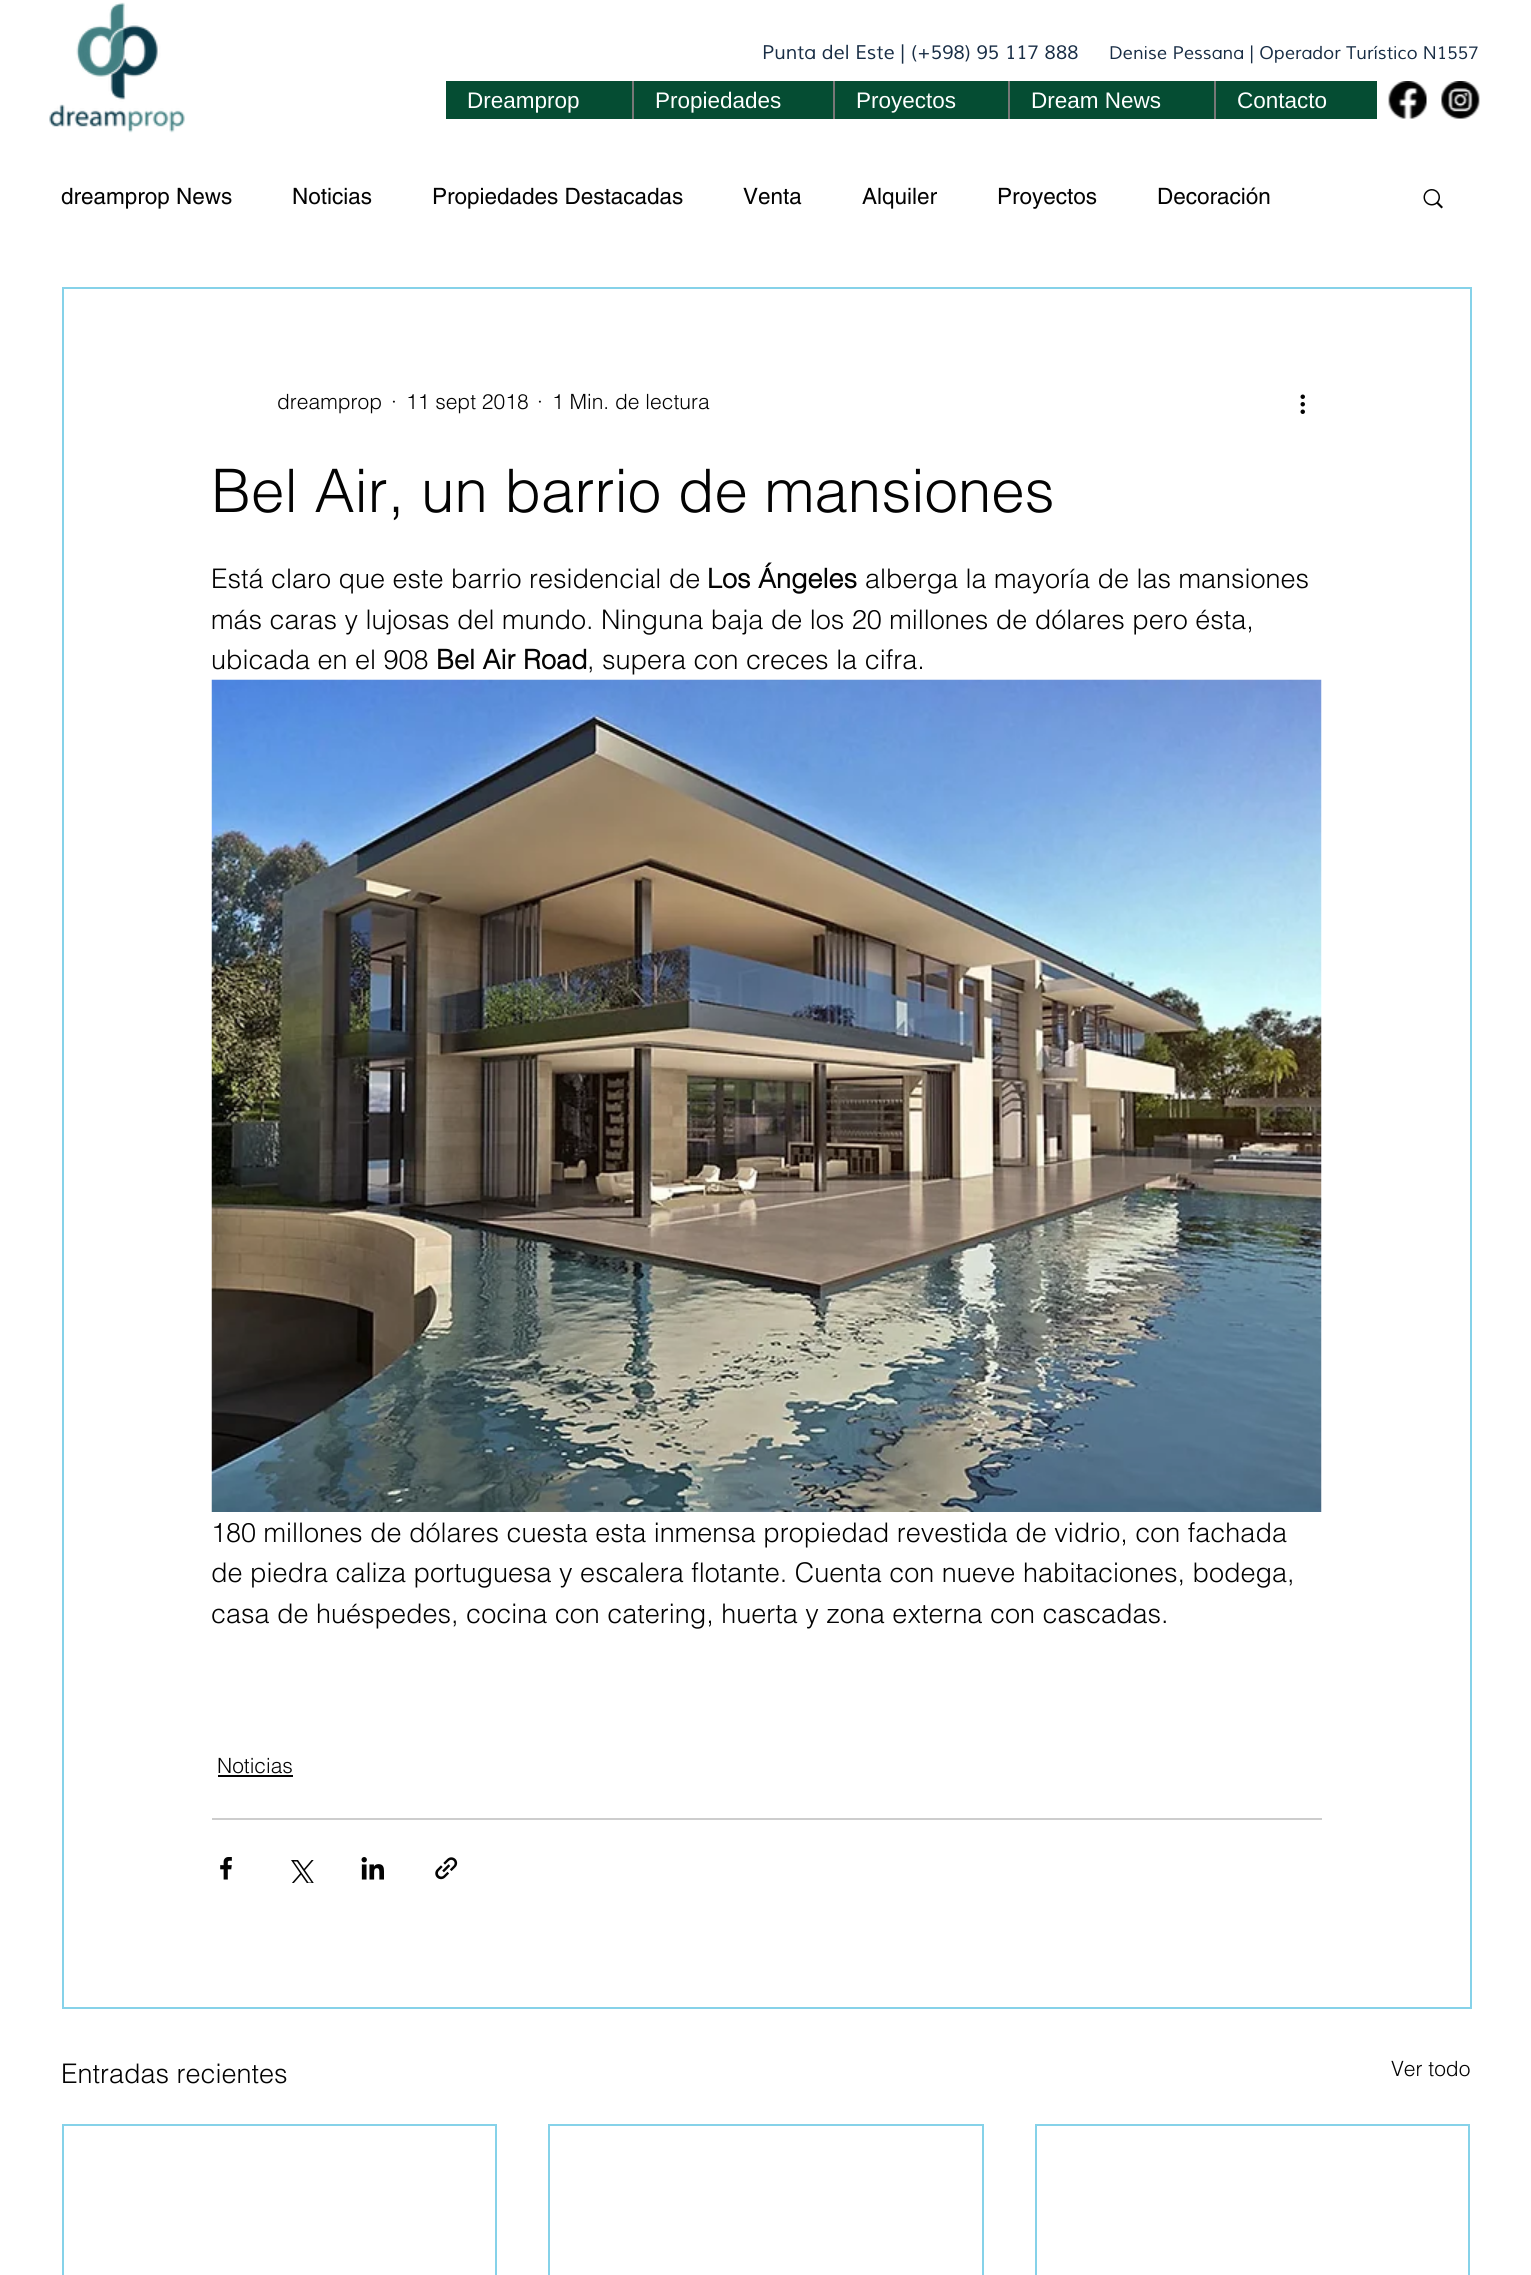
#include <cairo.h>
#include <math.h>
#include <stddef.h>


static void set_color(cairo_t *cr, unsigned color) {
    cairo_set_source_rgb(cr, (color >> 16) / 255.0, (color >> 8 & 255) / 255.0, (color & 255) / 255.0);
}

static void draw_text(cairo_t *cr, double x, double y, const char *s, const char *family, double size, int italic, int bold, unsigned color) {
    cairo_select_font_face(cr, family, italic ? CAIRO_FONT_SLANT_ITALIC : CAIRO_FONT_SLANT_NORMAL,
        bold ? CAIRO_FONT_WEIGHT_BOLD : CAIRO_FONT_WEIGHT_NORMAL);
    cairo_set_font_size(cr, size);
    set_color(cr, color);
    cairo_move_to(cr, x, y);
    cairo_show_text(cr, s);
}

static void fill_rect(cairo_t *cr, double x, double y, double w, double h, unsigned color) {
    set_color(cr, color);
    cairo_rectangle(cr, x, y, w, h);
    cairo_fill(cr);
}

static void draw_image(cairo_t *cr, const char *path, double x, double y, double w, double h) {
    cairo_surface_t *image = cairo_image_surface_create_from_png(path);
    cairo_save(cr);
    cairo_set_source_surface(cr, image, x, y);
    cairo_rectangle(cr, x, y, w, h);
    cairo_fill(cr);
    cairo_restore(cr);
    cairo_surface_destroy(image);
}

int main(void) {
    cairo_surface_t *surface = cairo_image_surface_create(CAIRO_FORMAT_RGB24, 1531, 2275);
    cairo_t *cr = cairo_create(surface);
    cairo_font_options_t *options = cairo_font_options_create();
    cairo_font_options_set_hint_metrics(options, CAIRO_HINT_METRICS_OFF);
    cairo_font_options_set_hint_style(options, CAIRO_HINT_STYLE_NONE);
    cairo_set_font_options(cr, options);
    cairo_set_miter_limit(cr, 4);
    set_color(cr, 0xFFFFFF);
    cairo_paint(cr);
    draw_image(cr, "assets/img1.png", 49, 2, 136, 131);
    draw_text(cr, 762, 59, "Punta del Este |", "Muli", 19.5, 1, 0, 0x182D45);
    draw_text(cr, 911, 59, "(+598) 95 117 888", "Muli", 19.5, 1, 0, 0x182D45);
    draw_text(cr, 1109, 59, "Denise Pessana | Operador Turístico N1557", "Muli", 18, 1, 0, 0x182D45);
    fill_rect(cr, 446, 81, 931, 38, 0x054D33);
    draw_text(cr, 467, 108, "Dreamprop", "Liberation Sans", 22.5, 0, 0, 0xFFFFFF);
    fill_rect(cr, 632, 81, 2, 38, 0x777777);
    draw_text(cr, 655, 108, "Propiedades", "Liberation Sans", 22.5, 0, 0, 0xFFFFFF);
    fill_rect(cr, 833, 81, 2, 38, 0x777777);
    draw_text(cr, 856, 108, "Proyectos", "Liberation Sans", 22.5, 0, 0, 0xFFFFFF);
    fill_rect(cr, 1008, 81, 2, 38, 0x777777);
    draw_text(cr, 1031, 108, "Dream News", "Liberation Sans", 22.5, 0, 0, 0xFFFFFF);
    fill_rect(cr, 1214, 81, 2, 38, 0x777777);
    draw_text(cr, 1237, 108, "Contacto", "Liberation Sans", 22.5, 0, 0, 0xFFFFFF);
    draw_image(cr, "assets/img2.png", 1388, 81, 39, 38);
    draw_image(cr, "assets/img3.png", 1441, 81, 39, 38);
    draw_text(cr, 61, 204, "dreamprop News", "helvetica", 22.5, 0, 0, 0x030303);
    draw_text(cr, 292, 204, "Noticias", "helvetica", 22.5, 0, 0, 0x030303);
    draw_text(cr, 432, 204, "Propiedades Destacadas", "helvetica", 22.5, 0, 0, 0x030303);
    draw_text(cr, 743, 204, "Venta", "helvetica", 22.5, 0, 0, 0x030303);
    draw_text(cr, 862, 204, "Alquiler", "helvetica", 22.5, 0, 0, 0x030303);
    draw_text(cr, 997, 204, "Proyectos", "helvetica", 22.5, 0, 0, 0x030303);
    draw_text(cr, 1157, 204, "Decoración", "helvetica", 22.5, 0, 0, 0x030303);
    draw_image(cr, "assets/img4.png", 1423, 189, 20, 20);
    cairo_rectangle(cr, 63, 288, 1408, 1720);
    set_color(cr, 0x86D2E9);
    cairo_stroke(cr);
    draw_text(cr, 277, 409, "dreamprop", "helvetica Light", 21, 0, 0, 0x030303);
    draw_text(cr, 391, 409, "·", "helvetica Light", 21, 0, 0, 0x030303);
    draw_text(cr, 406, 409, "11 sept 2018", "helvetica Light", 21, 0, 0, 0x030303);
    draw_text(cr, 537, 409, "·", "helvetica Light", 21, 0, 0, 0x030303);
    draw_text(cr, 552, 409, "1 Min. de lectura", "helvetica Light", 21, 0, 0, 0x030303);
    draw_image(cr, "assets/img5.png", 1300, 394, 5, 20);
    draw_text(cr, 211, 512, "Bel Air, un barrio de mansiones", "helvetica Light", 60, 0, 0, 0x030303);
    draw_text(cr, 211, 588, "Está claro que este barrio residencial de", "helvetica Light", 27, 0, 0, 0x030303);
    draw_text(cr, 707, 588, "Los Ángeles", "helvetica", 27, 0, 1, 0x030303);
    draw_text(cr, 865, 588, "alberga la mayoría de las mansiones", "helvetica Light", 27, 0, 0, 0x030303);
    draw_text(cr, 211, 629, "más caras y lujosas del mundo. Ninguna baja de los 20 millones de dólares pero ésta,", "helvetica Light", 27, 0, 0, 0x030303);
    draw_text(cr, 211, 669, "ubicada en el 908", "helvetica Light", 27, 0, 0, 0x030303);
    draw_text(cr, 436, 669, "Bel Air Road", "helvetica", 27, 0, 1, 0x030303);
    draw_text(cr, 587, 669, ", supera con creces la cifra.", "helvetica Light", 27, 0, 0, 0x030303);
    draw_image(cr, "assets/img6.png", 211, 679, 1111, 833);
    draw_text(cr, 211, 1542, "180 millones de dólares cuesta esta inmensa propiedad revestida de vidrio, con fachada", "helvetica Light", 27, 0, 0, 0x030303);
    draw_text(cr, 211, 1582, "de piedra caliza portuguesa y escalera flotante. Cuenta con nueve habitaciones, bodega,", "helvetica Light", 27, 0, 0, 0x030303);
    draw_text(cr, 211, 1623, "casa de huéspedes, cocina con catering, huerta y zona externa con cascadas.", "helvetica Light", 27, 0, 0, 0x030303);
    draw_text(cr, 217, 1773, "Noticias", "helvetica Light", 21, 0, 0, 0x030303);
    fill_rect(cr, 218, 1775, 75, 2, 0x030303);
    fill_rect(cr, 212, 1818, 1110, 2, 0xCDCDCD);
    draw_image(cr, "assets/img7.png", 220, 1857, 12, 23);
    draw_image(cr, "assets/img8.png", 291, 1860, 23, 23);
    draw_image(cr, "assets/img9.png", 361, 1857, 23, 23);
    draw_image(cr, "assets/img10.png", 435, 1857, 23, 23);
    draw_text(cr, 61, 2083, "Entradas recientes", "helvetica Light", 27, 0, 0, 0x030303);
    draw_text(cr, 1391, 2076, "Ver todo", "helvetica Light", 21, 0, 0, 0x030303);
    cairo_rectangle(cr, 63, 2125, 433, 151);
    set_color(cr, 0x86D2E9);
    cairo_stroke(cr);
    cairo_rectangle(cr, 549, 2125, 434, 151);
    cairo_stroke(cr);
    cairo_rectangle(cr, 1036, 2125, 433, 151);
    cairo_stroke(cr);
    cairo_surface_write_to_png(surface, "output.png");
    cairo_font_options_destroy(options);
    cairo_destroy(cr);
    cairo_surface_destroy(surface);
    return 0;
}
